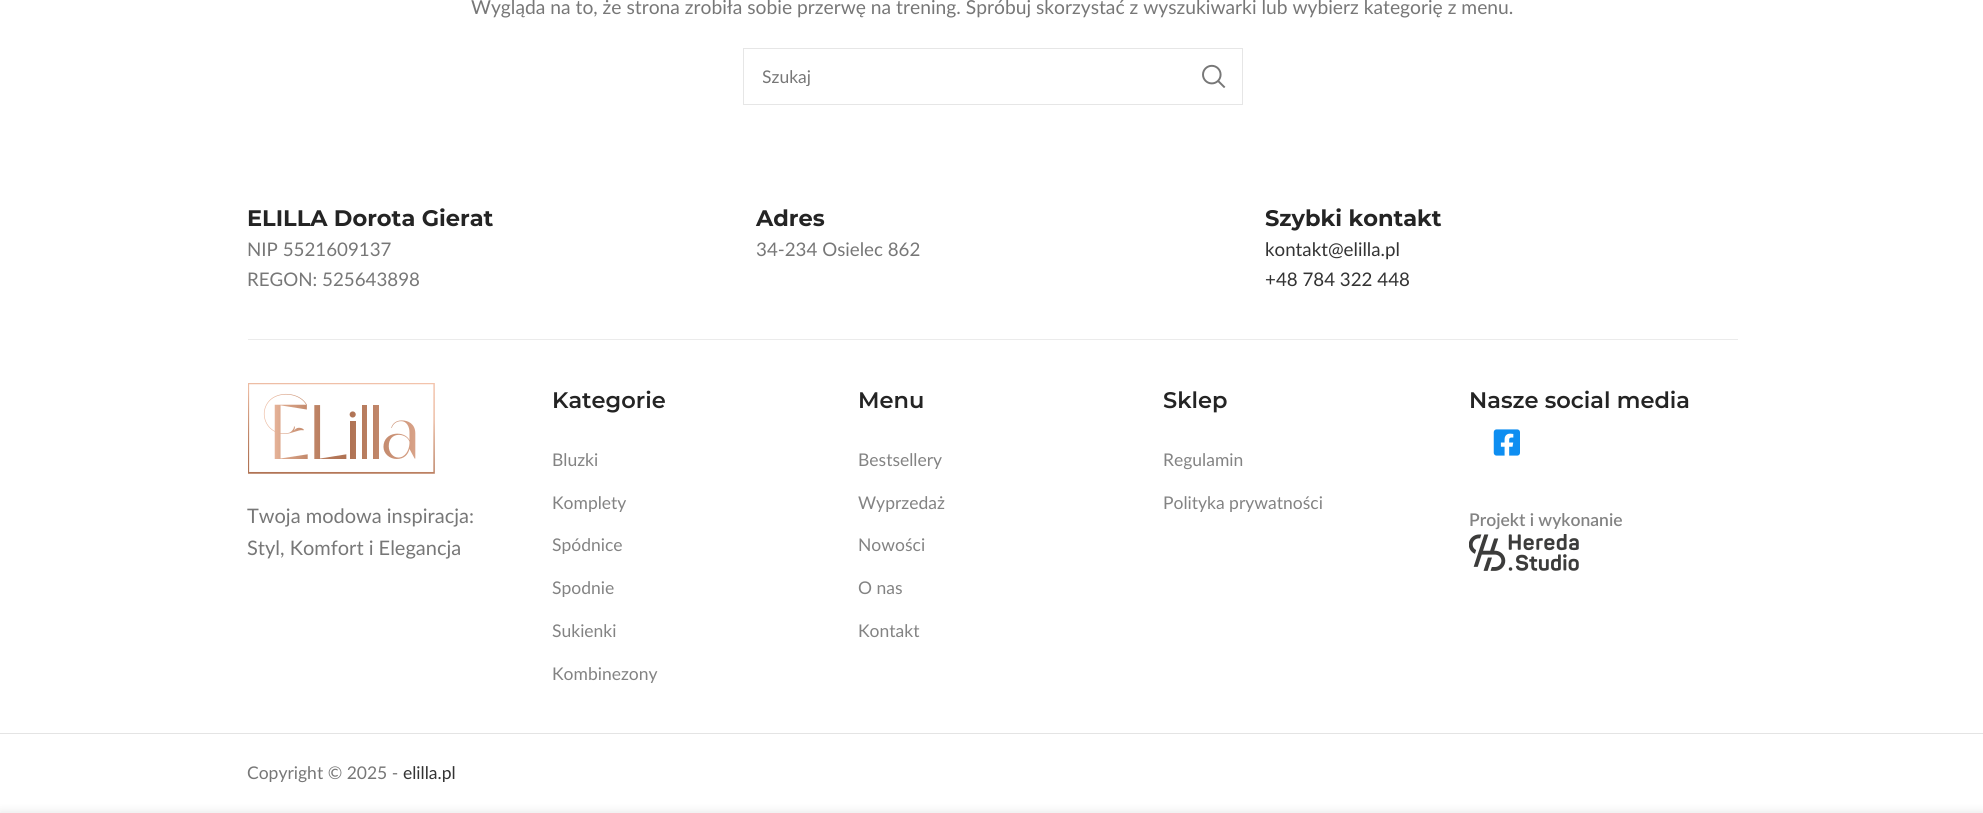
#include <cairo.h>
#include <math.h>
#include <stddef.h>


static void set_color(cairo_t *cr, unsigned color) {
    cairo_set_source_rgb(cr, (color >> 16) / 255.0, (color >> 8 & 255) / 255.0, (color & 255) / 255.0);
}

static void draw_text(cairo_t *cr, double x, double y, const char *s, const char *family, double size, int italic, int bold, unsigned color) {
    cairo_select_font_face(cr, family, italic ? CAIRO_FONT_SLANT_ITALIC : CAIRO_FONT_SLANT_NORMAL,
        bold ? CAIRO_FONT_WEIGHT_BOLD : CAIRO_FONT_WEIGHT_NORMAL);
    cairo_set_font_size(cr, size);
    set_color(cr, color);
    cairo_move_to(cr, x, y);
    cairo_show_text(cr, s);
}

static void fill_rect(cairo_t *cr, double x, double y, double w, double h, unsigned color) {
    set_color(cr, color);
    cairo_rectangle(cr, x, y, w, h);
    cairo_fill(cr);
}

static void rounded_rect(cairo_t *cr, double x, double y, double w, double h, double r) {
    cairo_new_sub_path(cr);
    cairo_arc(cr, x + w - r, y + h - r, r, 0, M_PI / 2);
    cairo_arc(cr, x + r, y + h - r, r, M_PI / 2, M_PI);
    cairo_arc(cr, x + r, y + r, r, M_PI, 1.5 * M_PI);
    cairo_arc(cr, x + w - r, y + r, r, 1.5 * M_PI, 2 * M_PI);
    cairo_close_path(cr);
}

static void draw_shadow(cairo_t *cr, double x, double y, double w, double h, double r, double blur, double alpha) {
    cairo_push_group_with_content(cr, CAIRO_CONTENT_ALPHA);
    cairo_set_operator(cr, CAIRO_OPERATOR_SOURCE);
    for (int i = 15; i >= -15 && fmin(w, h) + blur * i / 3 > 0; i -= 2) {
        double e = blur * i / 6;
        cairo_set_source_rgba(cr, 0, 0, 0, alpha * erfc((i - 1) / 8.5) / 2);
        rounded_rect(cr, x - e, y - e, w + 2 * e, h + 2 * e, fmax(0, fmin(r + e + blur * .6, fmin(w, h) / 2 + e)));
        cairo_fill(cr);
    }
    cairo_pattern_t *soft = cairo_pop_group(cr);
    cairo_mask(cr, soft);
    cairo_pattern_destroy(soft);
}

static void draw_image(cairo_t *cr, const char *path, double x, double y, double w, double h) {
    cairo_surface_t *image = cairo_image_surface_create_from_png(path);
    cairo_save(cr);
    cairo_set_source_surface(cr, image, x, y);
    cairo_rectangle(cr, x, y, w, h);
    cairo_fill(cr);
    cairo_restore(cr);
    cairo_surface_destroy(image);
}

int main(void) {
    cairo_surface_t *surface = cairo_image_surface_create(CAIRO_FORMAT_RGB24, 1983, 813);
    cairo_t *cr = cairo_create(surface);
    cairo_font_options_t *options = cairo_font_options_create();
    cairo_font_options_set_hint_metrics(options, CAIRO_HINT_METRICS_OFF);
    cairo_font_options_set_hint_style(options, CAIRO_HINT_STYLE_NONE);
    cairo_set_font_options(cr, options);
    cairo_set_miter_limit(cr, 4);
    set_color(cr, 0xFFFFFF);
    cairo_paint(cr);
    draw_text(cr, 471, 14, "Wygląda na to, że strona zrobiła sobie przerwę na trening. Spróbuj skorzystać z wyszukiwarki lub wybierz kategorię z menu.", "Lato", 19.25, 0, 0, 0x777777);
    cairo_rectangle(cr, 743.5, 48.5, 499, 56);
    set_color(cr, 0xE6E6E6);
    cairo_set_line_width(cr, 1);
    cairo_stroke(cr);
    cairo_save(cr);
    cairo_rectangle(cr, 763, 65, 383, 21);
    cairo_clip(cr);
    draw_text(cr, 762, 83, "Szukaj", "Lato", 17.5, 0, 0, 0x777777);
    cairo_restore(cr);
    draw_image(cr, "assets/img1.png", 1202, 64, 24, 24);
    draw_text(cr, 247, 226, "ELILLA Dorota Gierat", "Montserrat", 22.5, 0, 1, 0x242424);
    draw_text(cr, 247, 256, "NIP 5521609137", "Lato", 18.75, 0, 0, 0x777777);
    draw_text(cr, 247, 286, "REGON: 525643898", "Lato", 18.75, 0, 0, 0x777777);
    draw_text(cr, 756, 226, "Adres", "Montserrat", 22.5, 0, 1, 0x242424);
    draw_text(cr, 756, 256, "34-234 Osielec 862", "Lato", 18.75, 0, 0, 0x777777);
    draw_text(cr, 1265, 226, "Szybki kontakt", "Montserrat", 22.5, 0, 1, 0x242424);
    draw_text(cr, 1265, 256, "kontakt@elilla.pl", "Lato", 18.75, 0, 0, 0x333333);
    draw_text(cr, 1265, 286, "+48 784 322 448", "Lato", 18.75, 0, 0, 0x333333);
    fill_rect(cr, 248, 339, 1490, 1, 0xEBEBEB);
    draw_image(cr, "assets/img2.png", 248, 383, 187, 91);
    draw_text(cr, 247, 523, "Twoja modowa inspiracja:", "Lato", 20, 0, 0, 0x777777);
    draw_text(cr, 247, 555, "Styl, Komfort i Elegancja", "Lato", 20, 0, 0, 0x777777);
    draw_text(cr, 552, 408, "Kategorie", "Montserrat SemiBold", 22.5, 0, 0, 0x242424);
    draw_text(cr, 552, 466, "Bluzki", "Lato", 17.5, 0, 0, 0x838383);
    draw_text(cr, 552, 509, "Komplety", "Lato", 17.5, 0, 0, 0x838383);
    draw_text(cr, 552, 551, "Spódnice", "Lato", 17.5, 0, 0, 0x838383);
    draw_text(cr, 552, 594, "Spodnie", "Lato", 17.5, 0, 0, 0x838383);
    draw_text(cr, 552, 637, "Sukienki", "Lato", 17.5, 0, 0, 0x838383);
    draw_text(cr, 552, 680, "Kombinezony", "Lato", 17.5, 0, 0, 0x838383);
    draw_text(cr, 858, 408, "Menu", "Montserrat SemiBold", 22.5, 0, 0, 0x242424);
    draw_text(cr, 858, 466, "Bestsellery", "Lato", 17.5, 0, 0, 0x838383);
    draw_text(cr, 858, 509, "Wyprzedaż", "Lato", 17.5, 0, 0, 0x838383);
    draw_text(cr, 858, 551, "Nowości", "Lato", 17.5, 0, 0, 0x838383);
    draw_text(cr, 858, 594, "O nas", "Lato", 17.5, 0, 0, 0x838383);
    draw_text(cr, 858, 637, "Kontakt", "Lato", 17.5, 0, 0, 0x838383);
    draw_text(cr, 1163, 408, "Sklep", "Montserrat SemiBold", 22.5, 0, 0, 0x242424);
    draw_text(cr, 1163, 466, "Regulamin", "Lato", 17.5, 0, 0, 0x838383);
    draw_text(cr, 1163, 509, "Polityka prywatności", "Lato", 17.5, 0, 0, 0x838383);
    draw_text(cr, 1469, 408, "Nasze social media", "Montserrat SemiBold", 22.5, 0, 0, 0x242424);
    draw_image(cr, "assets/img3.png", 1493, 429, 27, 27);
    draw_text(cr, 1469, 526, "Projekt i wykonanie", "Lato SemiBold", 17.5, 0, 0, 0x838383);
    draw_image(cr, "assets/img4.png", 1469, 534, 110, 37);
    fill_rect(cr, 0, 733, 1983, 1, 0xE4E4E4);
    draw_text(cr, 247, 779, "Copyright © 2025 -", "Lato", 17.5, 0, 0, 0x777777);
    draw_text(cr, 403, 779, "elilla.pl", "Lato", 17.5, 0, 0, 0x333333);
    set_color(cr, 0x000000);
    draw_shadow(cr, 0, 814, 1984, 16, 0, 5.5, 0.14);
    cairo_surface_write_to_png(surface, "output.png");
    cairo_font_options_destroy(options);
    cairo_destroy(cr);
    cairo_surface_destroy(surface);
    return 0;
}
